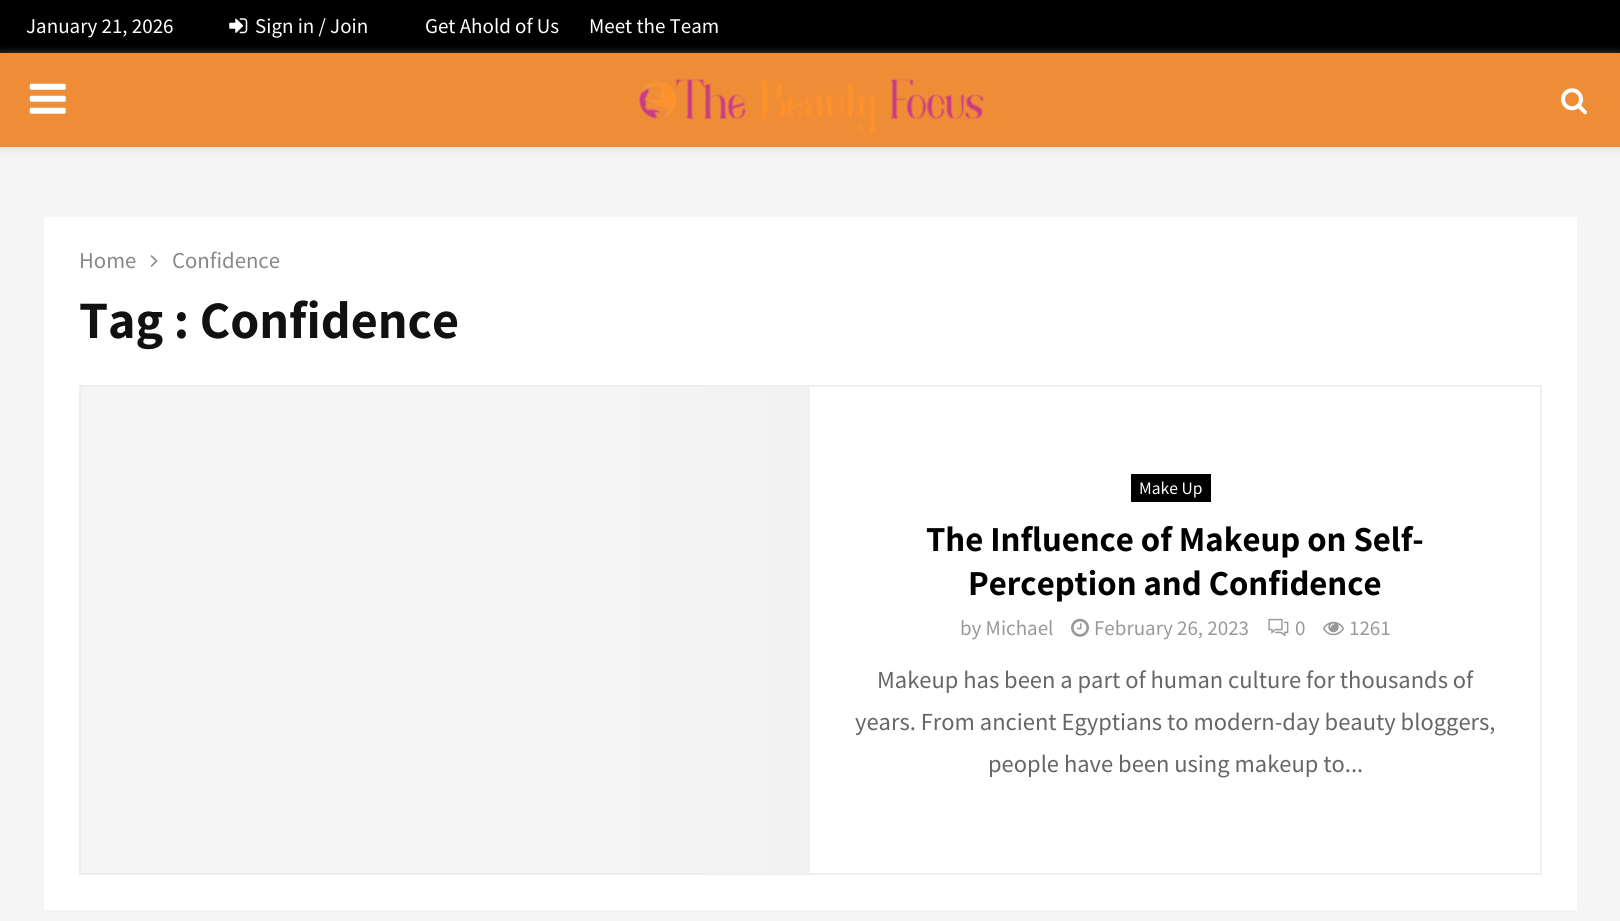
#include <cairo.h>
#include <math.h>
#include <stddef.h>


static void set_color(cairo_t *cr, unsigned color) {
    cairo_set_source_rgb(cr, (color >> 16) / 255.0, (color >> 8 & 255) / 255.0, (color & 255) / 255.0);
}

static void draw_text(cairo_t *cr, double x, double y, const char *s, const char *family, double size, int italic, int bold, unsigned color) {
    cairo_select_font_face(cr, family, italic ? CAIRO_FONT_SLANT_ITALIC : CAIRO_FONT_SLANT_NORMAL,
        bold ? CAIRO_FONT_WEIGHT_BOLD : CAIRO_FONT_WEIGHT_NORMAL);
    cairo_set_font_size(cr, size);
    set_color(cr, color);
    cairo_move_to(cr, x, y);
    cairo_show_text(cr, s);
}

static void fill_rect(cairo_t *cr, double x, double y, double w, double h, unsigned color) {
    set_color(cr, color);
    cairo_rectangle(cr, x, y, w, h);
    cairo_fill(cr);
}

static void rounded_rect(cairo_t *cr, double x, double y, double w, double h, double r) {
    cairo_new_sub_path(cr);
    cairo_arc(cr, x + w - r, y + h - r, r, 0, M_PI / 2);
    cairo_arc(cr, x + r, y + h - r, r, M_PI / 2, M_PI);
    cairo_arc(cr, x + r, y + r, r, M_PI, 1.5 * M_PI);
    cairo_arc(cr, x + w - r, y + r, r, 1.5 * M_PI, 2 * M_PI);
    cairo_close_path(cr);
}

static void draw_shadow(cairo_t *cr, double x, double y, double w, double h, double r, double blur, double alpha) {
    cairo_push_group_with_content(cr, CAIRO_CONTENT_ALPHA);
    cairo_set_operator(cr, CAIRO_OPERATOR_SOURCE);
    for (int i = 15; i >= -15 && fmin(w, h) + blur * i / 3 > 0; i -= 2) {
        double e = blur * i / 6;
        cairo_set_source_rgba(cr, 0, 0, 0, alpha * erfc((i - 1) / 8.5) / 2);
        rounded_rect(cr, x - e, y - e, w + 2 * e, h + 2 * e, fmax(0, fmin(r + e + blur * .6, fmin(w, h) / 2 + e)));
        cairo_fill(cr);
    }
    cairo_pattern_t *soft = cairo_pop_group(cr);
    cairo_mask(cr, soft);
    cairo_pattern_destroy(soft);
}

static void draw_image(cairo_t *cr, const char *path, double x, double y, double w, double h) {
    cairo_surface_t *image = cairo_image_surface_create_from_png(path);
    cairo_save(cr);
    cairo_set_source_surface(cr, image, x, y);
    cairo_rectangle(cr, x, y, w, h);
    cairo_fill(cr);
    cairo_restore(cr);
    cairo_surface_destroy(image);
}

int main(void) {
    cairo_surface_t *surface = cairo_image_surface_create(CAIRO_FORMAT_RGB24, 1620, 921);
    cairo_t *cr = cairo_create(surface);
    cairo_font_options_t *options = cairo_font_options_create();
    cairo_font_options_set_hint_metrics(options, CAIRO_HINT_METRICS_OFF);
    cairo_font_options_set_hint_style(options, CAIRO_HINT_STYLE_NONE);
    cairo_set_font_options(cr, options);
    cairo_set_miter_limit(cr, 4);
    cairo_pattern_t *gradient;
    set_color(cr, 0xF5F5F5);
    cairo_paint(cr);
    fill_rect(cr, 0, 0, 1620, 53, 0x000000);
    draw_text(cr, 26, 33, "January 21, 2026", "Source Sans Pro", 21, 0, 0, 0xFFFFFF);
    draw_image(cr, "assets/img1.png", 229, 18, 19, 16);
    draw_text(cr, 255, 33, "Sign in / Join", "Source Sans Pro", 21, 0, 0, 0xFFFFFF);
    draw_text(cr, 425, 33, "Get Ahold of Us", "Source Sans Pro", 21, 0, 0, 0xFFFFFF);
    draw_text(cr, 589, 33, "Meet the Team", "Source Sans Pro", 21, 0, 0, 0xFFFFFF);
    set_color(cr, 0xBEBEBE);
    draw_shadow(cr, 0, 54, 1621, 95, 0, 4.5, 0.46);
    fill_rect(cr, 0, 53, 1620, 94, 0xEF8D37);
    draw_image(cr, "assets/img2.png", 29, 83, 37, 31);
    draw_image(cr, "assets/img3.png", 638, 78, 347, 56);
    draw_image(cr, "assets/img4.png", 1561, 88, 26, 27);
    fill_rect(cr, 44, 217, 1533, 693, 0xFFFFFF);
    draw_text(cr, 79, 268, "Home", "Source Sans Pro", 22.75, 0, 0, 0x888888);
    draw_image(cr, "assets/img5.png", 150, 255, 8, 12);
    draw_text(cr, 172, 268, "Confidence", "Source Sans Pro", 22.75, 0, 0, 0x888888);
    draw_text(cr, 79, 338, "Tag : Confidence", "Assistant", 52.5, 0, 1, 0x111111);
    cairo_rectangle(cr, 80, 386, 1461, 488);
    set_color(cr, 0xEEEEEE);
    cairo_stroke(cr);
    gradient = cairo_pattern_create_linear(1233, 630, -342, 630);
    cairo_pattern_add_color_stop_rgba(gradient, 0, 0.961, 0.961, 0.961, 1);
    cairo_pattern_add_color_stop_rgba(gradient, 0.15, 0.937, 0.937, 0.937, 1);
    cairo_pattern_add_color_stop_rgba(gradient, 0.4, 0.961, 0.961, 0.961, 1);
    cairo_pattern_add_color_stop_rgba(gradient, 1, 0.961, 0.961, 0.961, 1);
    cairo_set_source(cr, gradient);
    cairo_pattern_destroy(gradient);
    cairo_rectangle(cr, 81, 387, 729, 486);
    cairo_fill(cr);
    fill_rect(cr, 1131, 474, 80, 28, 0x000000);
    draw_text(cr, 1139, 494, "Make Up", "Source Sans Pro", 17.5, 0, 0, 0xFFFFFF);
    draw_text(cr, 926, 551, "The Influence of Makeup on Self-", "Assistant", 35, 0, 1, 0x000000);
    draw_text(cr, 968, 595, "Perception and Confidence", "Assistant", 35, 0, 1, 0x000000);
    draw_text(cr, 960, 635, "by Michael", "Source Sans Pro", 21, 0, 0, 0x999999);
    draw_image(cr, "assets/img6.png", 1071, 618, 18, 19);
    draw_text(cr, 1094, 635, "February 26, 2023", "Source Sans Pro", 21, 0, 0, 0x999999);
    draw_image(cr, "assets/img7.png", 1268, 618, 21, 19);
    draw_text(cr, 1295, 635, "0", "Source Sans Pro", 21, 0, 0, 0x999999);
    draw_image(cr, "assets/img8.png", 1323, 621, 21, 15);
    draw_text(cr, 1349, 635, "1261", "Source Sans Pro", 21, 0, 0, 0x999999);
    draw_text(cr, 877, 688, "Makeup has been a part of human culture for thousands of", "Source Sans Pro", 24.5, 0, 0, 0x666666);
    draw_text(cr, 855, 730, "years. From ancient Egyptians to modern-day beauty bloggers,", "Source Sans Pro", 24.5, 0, 0, 0x666666);
    draw_text(cr, 988, 772, "people have been using makeup to...", "Source Sans Pro", 24.5, 0, 0, 0x666666);
    cairo_surface_write_to_png(surface, "output.png");
    cairo_font_options_destroy(options);
    cairo_destroy(cr);
    cairo_surface_destroy(surface);
    return 0;
}
